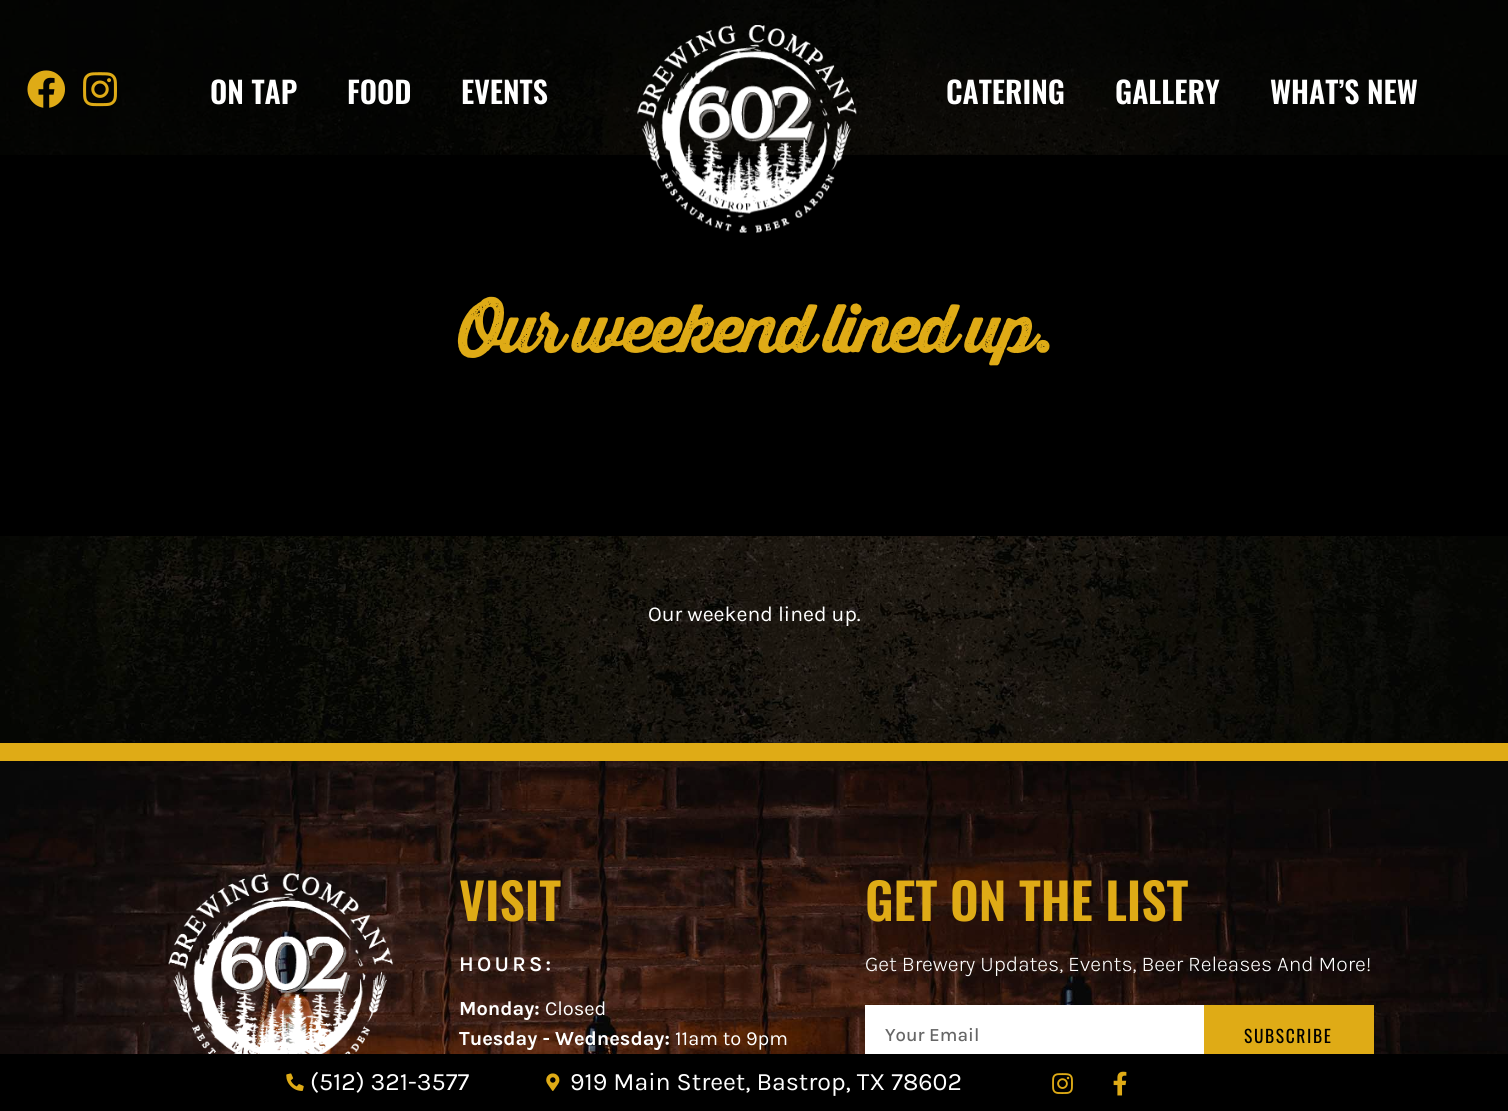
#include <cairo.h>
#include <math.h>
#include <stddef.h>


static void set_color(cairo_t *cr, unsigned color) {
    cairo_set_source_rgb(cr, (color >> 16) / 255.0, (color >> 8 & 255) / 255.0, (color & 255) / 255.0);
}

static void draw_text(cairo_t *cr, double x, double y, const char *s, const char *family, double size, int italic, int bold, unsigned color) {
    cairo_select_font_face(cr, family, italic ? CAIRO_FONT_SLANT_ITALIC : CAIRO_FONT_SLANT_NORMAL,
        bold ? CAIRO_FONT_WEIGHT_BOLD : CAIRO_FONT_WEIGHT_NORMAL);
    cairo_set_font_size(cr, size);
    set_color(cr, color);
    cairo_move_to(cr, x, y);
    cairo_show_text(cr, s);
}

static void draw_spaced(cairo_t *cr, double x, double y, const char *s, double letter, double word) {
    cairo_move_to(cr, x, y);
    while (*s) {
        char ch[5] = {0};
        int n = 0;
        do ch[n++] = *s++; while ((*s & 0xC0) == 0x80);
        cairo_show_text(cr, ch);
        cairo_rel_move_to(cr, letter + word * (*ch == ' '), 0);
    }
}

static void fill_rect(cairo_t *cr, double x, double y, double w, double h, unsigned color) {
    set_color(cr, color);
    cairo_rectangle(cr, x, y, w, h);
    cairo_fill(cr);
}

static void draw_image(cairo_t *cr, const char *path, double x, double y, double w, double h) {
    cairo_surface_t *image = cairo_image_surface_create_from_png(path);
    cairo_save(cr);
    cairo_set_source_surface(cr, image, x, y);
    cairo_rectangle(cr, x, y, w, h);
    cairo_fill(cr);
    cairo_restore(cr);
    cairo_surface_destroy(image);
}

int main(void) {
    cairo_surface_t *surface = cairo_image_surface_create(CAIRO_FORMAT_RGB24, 1508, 1111);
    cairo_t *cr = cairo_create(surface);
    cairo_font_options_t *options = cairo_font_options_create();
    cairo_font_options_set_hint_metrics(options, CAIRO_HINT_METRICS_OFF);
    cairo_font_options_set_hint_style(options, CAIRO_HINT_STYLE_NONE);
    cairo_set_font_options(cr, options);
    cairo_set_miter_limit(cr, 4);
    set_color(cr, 0x000000);
    cairo_paint(cr);
    draw_image(cr, "assets/img1.png", 0, 0, 1508, 155);
    draw_image(cr, "assets/img2.png", 27, 70, 38, 38);
    draw_image(cr, "assets/img3.png", 83, 72, 34, 35);
    draw_text(cr, 210, 104, "ON TAP", "Oswald SemiBold", 30, 0, 0, 0xFFFFFF);
    draw_text(cr, 347, 104, "FOOD", "Oswald SemiBold", 30, 0, 0, 0xFFFFFF);
    draw_text(cr, 461, 104, "EVENTS", "Oswald SemiBold", 30, 0, 0, 0xFFFFFF);
    draw_image(cr, "assets/img4.png", 637, 25, 220, 208);
    draw_text(cr, 946, 104, "CATERING", "Oswald SemiBold", 30, 0, 0, 0xFFFFFF);
    draw_text(cr, 1115, 104, "GALLERY", "Oswald SemiBold", 30, 0, 0, 0xFFFFFF);
    draw_text(cr, 1270, 104, "WHAT’S NEW", "Oswald SemiBold", 30, 0, 0, 0xFFFFFF);
    cairo_select_font_face(cr, "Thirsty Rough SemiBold", CAIRO_FONT_SLANT_NORMAL, CAIRO_FONT_WEIGHT_NORMAL);
    cairo_set_font_size(cr, 66.25);
    set_color(cr, 0xDFAB16);
    draw_spaced(cr, 458, 352, "Our weekend lined up.", -3.75, 0);
    fill_rect(cr, 0, 743, 1508, 18, 0xDFAB16);
    draw_image(cr, "assets/img5.png", 0, 536, 1508, 207);
    draw_text(cr, 648, 621, "Our weekend lined up.", "Karla", 21.25, 0, 0, 0xFFFFFF);
    draw_image(cr, "assets/img6.png", 0, 761, 1508, 293);
    draw_image(cr, "assets/img7.png", 168, 873, 225, 181);
    draw_text(cr, 459, 921, "VISIT", "Oswald SemiBold", 50, 0, 0, 0xDFAB16);
    cairo_select_font_face(cr, "Karla SemiBold", CAIRO_FONT_SLANT_NORMAL, CAIRO_FONT_WEIGHT_NORMAL);
    cairo_set_font_size(cr, 21.25);
    set_color(cr, 0xFFFFFF);
    draw_spaced(cr, 459, 971, "HOURS:", 3.25, 0);
    draw_text(cr, 459, 1015, "Monday:", "Karla", 20, 0, 1, 0xFFFFFF);
    draw_text(cr, 545, 1015, "Closed", "Karla", 20, 0, 0, 0xFFFFFF);
    draw_text(cr, 459, 1045, "Tuesday - Wednesday:", "Karla", 20, 0, 1, 0xFFFFFF);
    draw_text(cr, 675, 1045, "11am to 9pm", "Karla", 20, 0, 0, 0xFFFFFF);
    draw_text(cr, 865, 921, "GET ON THE LIST", "Oswald SemiBold", 50, 0, 0, 0xDFAB16);
    draw_text(cr, 865, 971, "Get Brewery Updates, Events, Beer Releases And More!", "Karla Light", 21.25, 0, 0, 0xFFFFFF);
    fill_rect(cr, 865, 1005, 339, 49, 0xFFFFFF);
    draw_text(cr, 885, 1041, "Your Email", "Karla Medium", 18.75, 0, 0, 0x666666);
    fill_rect(cr, 1204, 1005, 170, 49, 0xDFAB16);
    cairo_select_font_face(cr, "Oswald", CAIRO_FONT_SLANT_NORMAL, CAIRO_FONT_WEIGHT_NORMAL);
    cairo_set_font_size(cr, 17.5);
    set_color(cr, 0x000000);
    draw_spaced(cr, 1244, 1043, "SUBSCRIBE", 1.6, 0);
    draw_image(cr, "assets/img8.png", 286, 1073, 18, 18);
    draw_text(cr, 310, 1090, "(512) 321-3577", "Karla", 25, 0, 0, 0xFFFFFF);
    draw_image(cr, "assets/img9.png", 546, 1073, 14, 18);
    draw_text(cr, 570, 1090, "919 Main Street, Bastrop, TX 78602", "Karla", 25, 0, 0, 0xFFFFFF);
    draw_image(cr, "assets/img10.png", 1052, 1073, 21, 21);
    draw_image(cr, "assets/img11.png", 1113, 1071, 14, 25);
    cairo_surface_write_to_png(surface, "output.png");
    cairo_font_options_destroy(options);
    cairo_destroy(cr);
    cairo_surface_destroy(surface);
    return 0;
}
